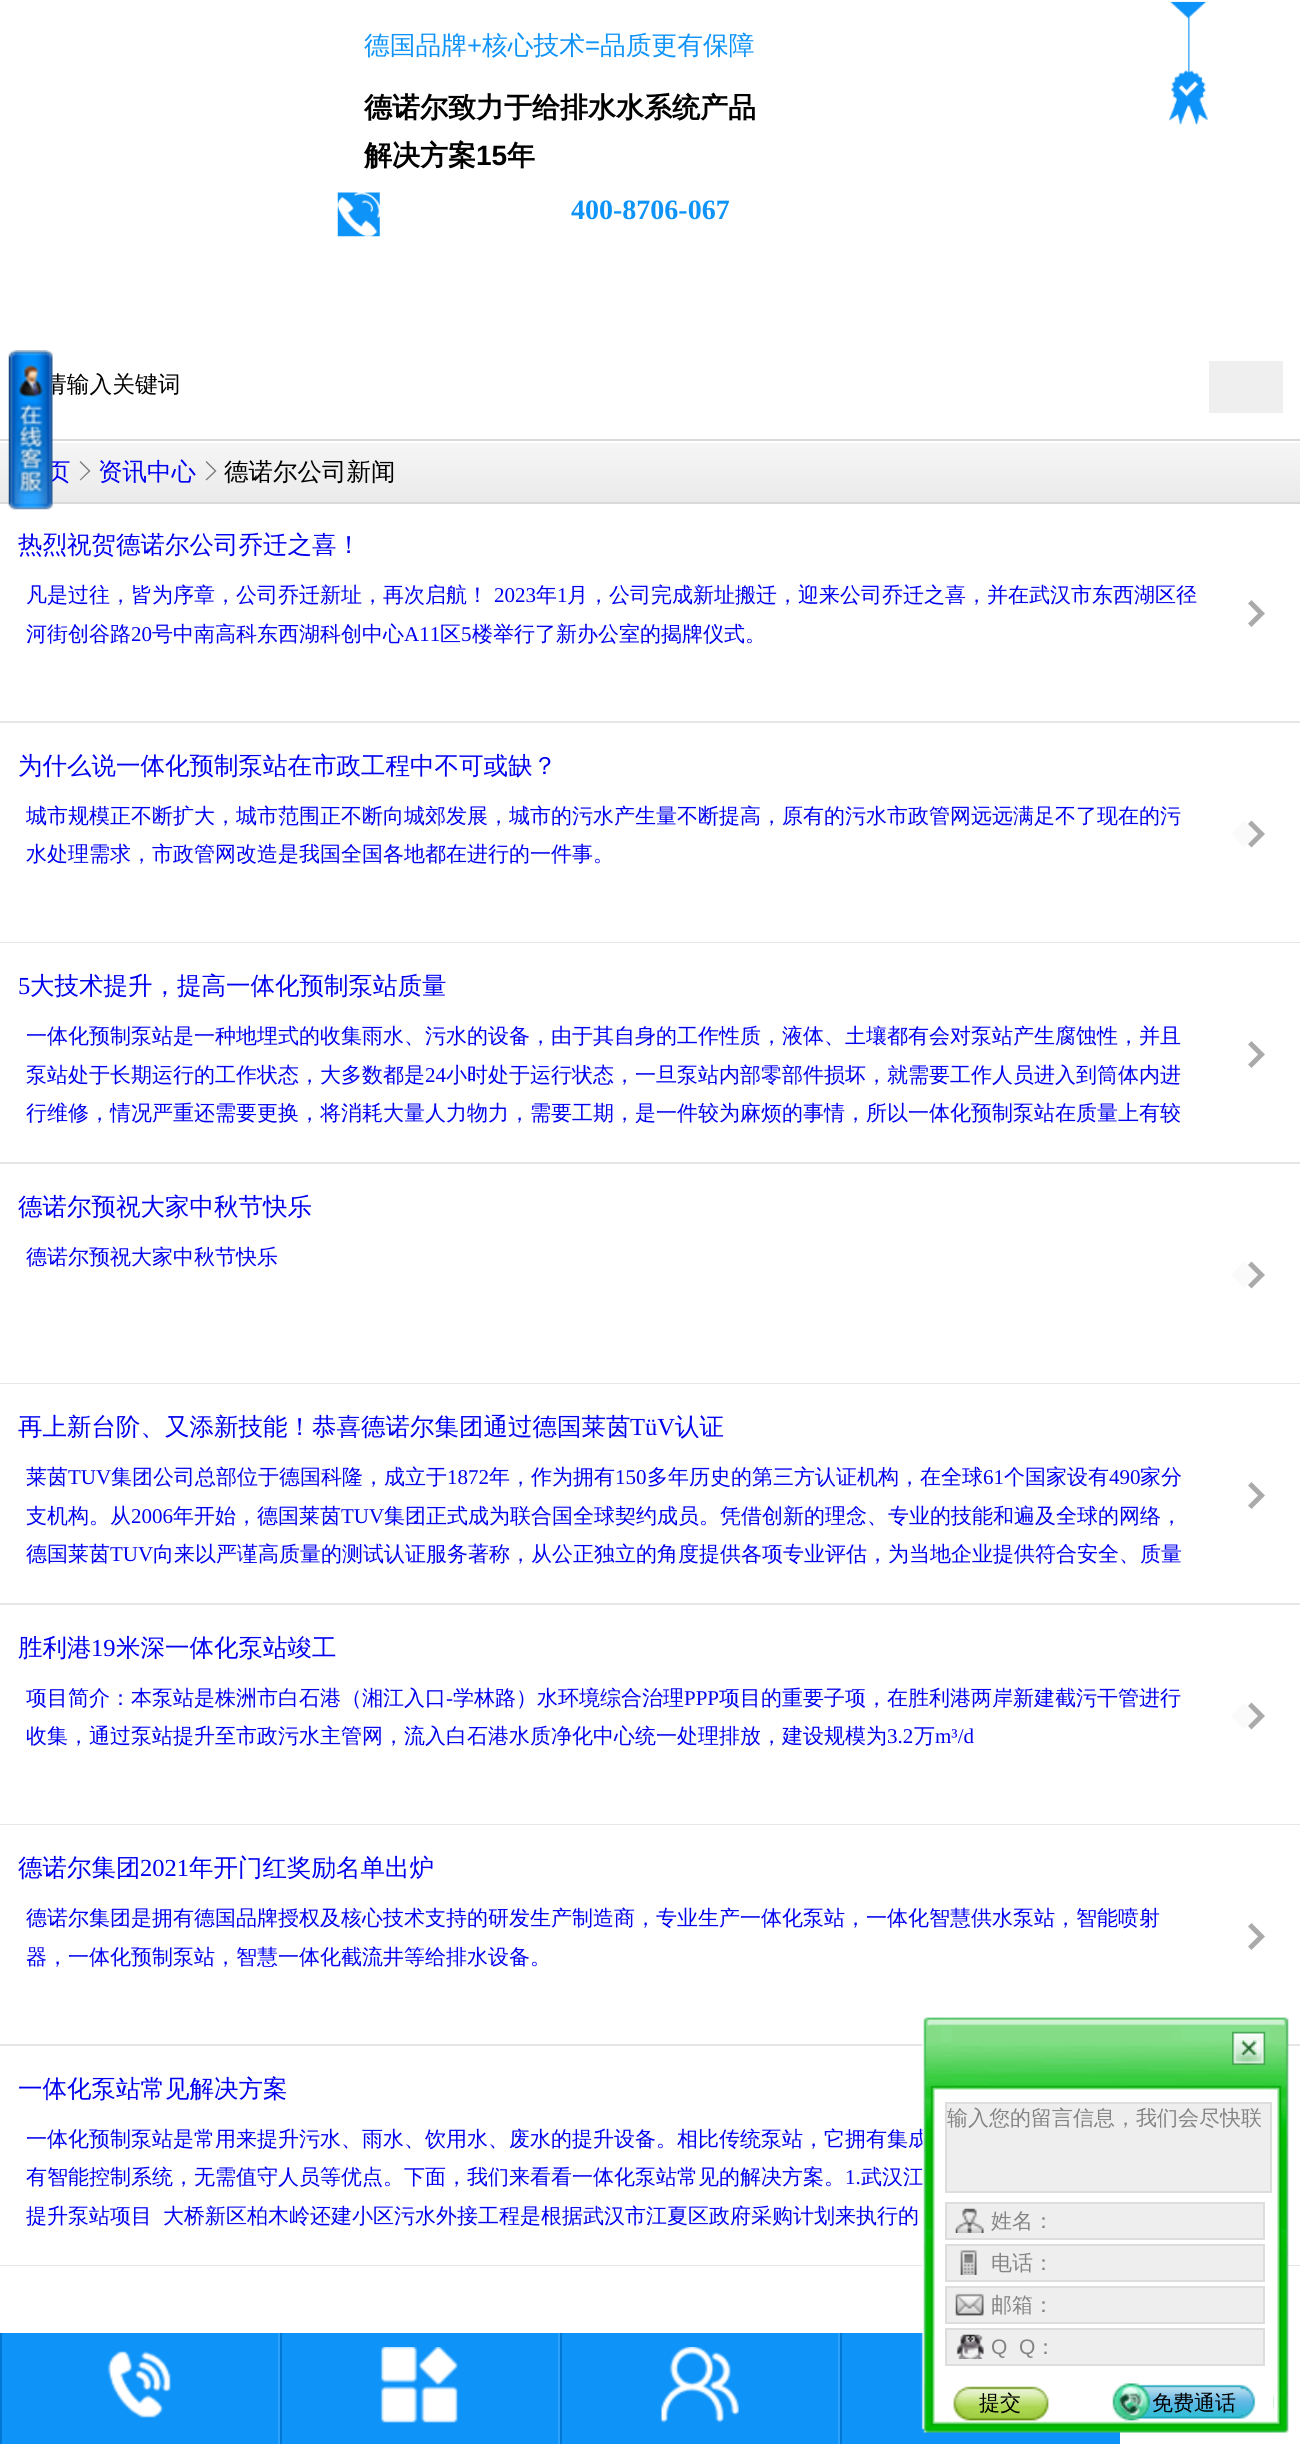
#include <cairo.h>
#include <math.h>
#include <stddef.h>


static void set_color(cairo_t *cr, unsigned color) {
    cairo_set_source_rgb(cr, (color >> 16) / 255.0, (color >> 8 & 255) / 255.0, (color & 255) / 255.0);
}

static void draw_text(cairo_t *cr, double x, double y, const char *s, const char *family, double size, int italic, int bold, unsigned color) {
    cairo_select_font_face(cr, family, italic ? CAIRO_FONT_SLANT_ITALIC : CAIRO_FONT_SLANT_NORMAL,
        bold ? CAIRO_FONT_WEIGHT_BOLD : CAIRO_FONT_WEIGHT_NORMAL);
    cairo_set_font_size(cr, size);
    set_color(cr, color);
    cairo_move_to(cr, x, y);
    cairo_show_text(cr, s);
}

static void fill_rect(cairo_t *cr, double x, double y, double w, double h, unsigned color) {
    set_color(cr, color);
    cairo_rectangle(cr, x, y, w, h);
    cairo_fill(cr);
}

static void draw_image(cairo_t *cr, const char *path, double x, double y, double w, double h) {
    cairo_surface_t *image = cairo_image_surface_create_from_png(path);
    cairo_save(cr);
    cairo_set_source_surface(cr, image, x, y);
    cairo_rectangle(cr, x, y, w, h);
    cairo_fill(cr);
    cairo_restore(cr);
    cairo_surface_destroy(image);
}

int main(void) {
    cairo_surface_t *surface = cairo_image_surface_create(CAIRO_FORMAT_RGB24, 1300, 2444);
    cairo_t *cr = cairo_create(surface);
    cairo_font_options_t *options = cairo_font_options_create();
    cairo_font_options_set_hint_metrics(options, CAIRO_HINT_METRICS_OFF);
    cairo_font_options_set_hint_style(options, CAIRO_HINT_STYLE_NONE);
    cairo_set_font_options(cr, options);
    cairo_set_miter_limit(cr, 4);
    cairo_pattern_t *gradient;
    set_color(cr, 0xFFFFFF);
    cairo_paint(cr);
    draw_text(cr, 364, 54, "德国品牌", "WenQuanYi Zen Hei Medium", 25.75, 0, 0, 0x0E93F8);
    draw_text(cr, 467, 54, "+", "Liberation Sans", 25.75, 0, 0, 0x0E93F8);
    draw_text(cr, 482, 54, "核心技术", "WenQuanYi Zen Hei Medium", 25.75, 0, 0, 0x0E93F8);
    draw_text(cr, 585, 54, "=", "Liberation Sans", 25.75, 0, 0, 0x0E93F8);
    draw_text(cr, 600, 54, "品质更有保障", "WenQuanYi Zen Hei Medium", 25.75, 0, 0, 0x0E93F8);
    draw_text(cr, 364, 117, "德诺尔致力于给排水水系统产品", "WenQuanYi Zen Hei", 28, 0, 1, 0x000000);
    draw_text(cr, 364, 165, "解决方案", "WenQuanYi Zen Hei", 28, 0, 1, 0x000000);
    draw_text(cr, 476, 165, "15", "Liberation Sans", 28, 0, 1, 0x000000);
    draw_text(cr, 507, 165, "年", "WenQuanYi Zen Hei", 28, 0, 1, 0x000000);
    draw_image(cr, "assets/img1.png", 1169, 1, 39, 124);
    draw_image(cr, "assets/img2.png", 337, 192, 43, 45);
    draw_text(cr, 571, 219, "400-8706-067", "Liberation Serif", 28, 0, 1, 0x0E93F8);
    draw_text(cr, 44, 392, "请输入关键词", "WenQuanYi Zen Hei Medium", 22.75, 0, 0, 0x000000);
    fill_rect(cr, 1209, 361, 74, 52, 0xEFEFEF);
    gradient = cairo_pattern_create_linear(650, 441, 650, 502);
    cairo_pattern_add_color_stop_rgba(gradient, 0, 0.965, 0.965, 0.965, 1);
    cairo_pattern_add_color_stop_rgba(gradient, 1, 0.918, 0.918, 0.918, 1);
    cairo_set_source(cr, gradient);
    cairo_pattern_destroy(gradient);
    cairo_rectangle(cr, 0, 443, 1300, 59);
    cairo_fill(cr);
    fill_rect(cr, 0, 439, 1300, 2, 0xD9D9D9);
    fill_rect(cr, 0, 502, 1300, 2, 0xD9D9D9);
    draw_text(cr, 46, 480, "页", "WenQuanYi Zen Hei Medium", 24.5, 0, 0, 0x0000EE);
    set_color(cr, 0x7C7C7C);
    cairo_new_path(cr);
    cairo_move_to(cr, 80.5, 461);
    cairo_line_to(cr, 90.5, 471);
    cairo_line_to(cr, 80.5, 480.5);
    cairo_line_to(cr, 70.5, 471);
    cairo_close_path(cr);
    cairo_fill(cr);
    gradient = cairo_pattern_create_linear(84, 466, 74, 476);
    cairo_pattern_add_color_stop_rgba(gradient, 0, 0.949, 0.949, 0.949, 1);
    cairo_pattern_add_color_stop_rgba(gradient, 1, 0.933, 0.933, 0.933, 1);
    cairo_set_source(cr, gradient);
    cairo_pattern_destroy(gradient);
    cairo_new_path(cr);
    cairo_move_to(cr, 78.5, 461);
    cairo_line_to(cr, 88.5, 471);
    cairo_line_to(cr, 79, 480.5);
    cairo_line_to(cr, 69, 471);
    cairo_close_path(cr);
    cairo_fill(cr);
    draw_text(cr, 98, 480, "资讯中心", "WenQuanYi Zen Hei Medium", 24.5, 0, 0, 0x0000EE);
    set_color(cr, 0x7C7C7C);
    cairo_new_path(cr);
    cairo_move_to(cr, 206.5, 461);
    cairo_line_to(cr, 216.5, 471);
    cairo_line_to(cr, 206.5, 480.5);
    cairo_line_to(cr, 196.5, 471);
    cairo_close_path(cr);
    cairo_fill(cr);
    gradient = cairo_pattern_create_linear(210, 466, 200, 476);
    cairo_pattern_add_color_stop_rgba(gradient, 0, 0.949, 0.949, 0.949, 1);
    cairo_pattern_add_color_stop_rgba(gradient, 1, 0.933, 0.933, 0.933, 1);
    cairo_set_source(cr, gradient);
    cairo_pattern_destroy(gradient);
    cairo_new_path(cr);
    cairo_move_to(cr, 204.5, 461);
    cairo_line_to(cr, 214.5, 471);
    cairo_line_to(cr, 204.5, 480.5);
    cairo_line_to(cr, 195, 471);
    cairo_close_path(cr);
    cairo_fill(cr);
    draw_text(cr, 224, 480, "德诺尔公司新闻", "WenQuanYi Zen Hei Medium", 24.5, 0, 0, 0x000000);
    fill_rect(cr, 0, 721, 1300, 2, 0xE6E6E6);
    draw_text(cr, 18, 553, "热烈祝贺德诺尔公司乔迁之喜！", "WenQuanYi Zen Hei Medium", 24.5, 0, 0, 0x0000EE);
    draw_text(cr, 26, 602, "凡是过往，皆为序章，公司乔迁新址，再次启航！", "WenQuanYi Zen Hei Medium", 21, 0, 0, 0x0000EE);
    draw_text(cr, 494, 602, "2023", "Liberation Serif", 21, 0, 0, 0x0000EE);
    draw_text(cr, 536, 602, "年", "WenQuanYi Zen Hei Medium", 21, 0, 0, 0x0000EE);
    draw_text(cr, 557, 602, "1", "Liberation Serif", 21, 0, 0, 0x0000EE);
    draw_text(cr, 567, 602, "月，公司完成新址搬迁，迎来公司乔迁之喜，并在武汉市东西湖区径", "WenQuanYi Zen Hei Medium", 21, 0, 0, 0x0000EE);
    draw_text(cr, 26, 641, "河街创谷路", "WenQuanYi Zen Hei Medium", 21, 0, 0, 0x0000EE);
    draw_text(cr, 131, 641, "20", "Liberation Serif", 21, 0, 0, 0x0000EE);
    draw_text(cr, 152, 641, "号中南高科东西湖科创中心", "WenQuanYi Zen Hei Medium", 21, 0, 0, 0x0000EE);
    draw_text(cr, 404, 641, "A11", "Liberation Serif", 21, 0, 0, 0x0000EE);
    draw_text(cr, 440, 641, "区", "WenQuanYi Zen Hei Medium", 21, 0, 0, 0x0000EE);
    draw_text(cr, 461, 641, "5", "Liberation Serif", 21, 0, 0, 0x0000EE);
    draw_text(cr, 472, 641, "楼举行了新办公室的揭牌仪式。", "WenQuanYi Zen Hei Medium", 21, 0, 0, 0x0000EE);
    set_color(cr, 0xAAAAAA);
    cairo_new_path(cr);
    cairo_move_to(cr, 1251.5, 600);
    cairo_line_to(cr, 1265, 613.5);
    cairo_line_to(cr, 1251.5, 627);
    cairo_line_to(cr, 1238, 613.5);
    cairo_close_path(cr);
    cairo_fill(cr);
    set_color(cr, 0xFFFFFF);
    cairo_new_path(cr);
    cairo_move_to(cr, 1244.5, 600);
    cairo_line_to(cr, 1258, 613.5);
    cairo_line_to(cr, 1244.5, 627);
    cairo_line_to(cr, 1231, 613.5);
    cairo_close_path(cr);
    cairo_fill(cr);
    fill_rect(cr, 0, 942, 1300, 1, 0xE6E6E6);
    draw_text(cr, 18, 774, "为什么说一体化预制泵站在市政工程中不可或缺？", "WenQuanYi Zen Hei Medium", 24.5, 0, 0, 0x0000EE);
    draw_text(cr, 26, 823, "城市规模正不断扩大，城市范围正不断向城郊发展，城市的污水产生量不断提高，原有的污水市政管网远远满足不了现在的污", "WenQuanYi Zen Hei Medium", 21, 0, 0, 0x0000EE);
    draw_text(cr, 26, 861, "水处理需求，市政管网改造是我国全国各地都在进行的一件事。", "WenQuanYi Zen Hei Medium", 21, 0, 0, 0x0000EE);
    set_color(cr, 0xAAAAAA);
    cairo_new_path(cr);
    cairo_move_to(cr, 1251.5, 820.5);
    cairo_line_to(cr, 1265, 834);
    cairo_line_to(cr, 1251.5, 847.5);
    cairo_line_to(cr, 1238, 834);
    cairo_close_path(cr);
    cairo_fill(cr);
    set_color(cr, 0xFAFAFA);
    cairo_new_path(cr);
    cairo_move_to(cr, 1244.5, 820.5);
    cairo_line_to(cr, 1258, 834);
    cairo_line_to(cr, 1244.5, 847.5);
    cairo_line_to(cr, 1231, 834);
    cairo_close_path(cr);
    cairo_fill(cr);
    fill_rect(cr, 0, 1162, 1300, 2, 0xE6E6E6);
    draw_text(cr, 18, 994, "5", "Liberation Serif", 24.5, 0, 0, 0x0000EE);
    draw_text(cr, 30, 994, "大技术提升，提高一体化预制泵站质量", "WenQuanYi Zen Hei Medium", 24.5, 0, 0, 0x0000EE);
    draw_text(cr, 26, 1043, "一体化预制泵站是一种地埋式的收集雨水、污水的设备，由于其自身的工作性质，液体、土壤都有会对泵站产生腐蚀性，并且", "WenQuanYi Zen Hei Medium", 21, 0, 0, 0x0000EE);
    draw_text(cr, 26, 1082, "泵站处于长期运行的工作状态，大多数都是", "WenQuanYi Zen Hei Medium", 21, 0, 0, 0x0000EE);
    draw_text(cr, 425, 1082, "24", "Liberation Serif", 21, 0, 0, 0x0000EE);
    draw_text(cr, 446, 1082, "小时处于运行状态，一旦泵站内部零部件损坏，就需要工作人员进入到筒体内进", "WenQuanYi Zen Hei Medium", 21, 0, 0, 0x0000EE);
    draw_text(cr, 26, 1120, "行维修，情况严重还需要更换，将消耗大量人力物力，需要工期，是一件较为麻烦的事情，所以一体化预制泵站在质量上有较", "WenQuanYi Zen Hei Medium", 21, 0, 0, 0x0000EE);
    set_color(cr, 0xAAAAAA);
    cairo_new_path(cr);
    cairo_move_to(cr, 1251.5, 1041);
    cairo_line_to(cr, 1265, 1054.5);
    cairo_line_to(cr, 1251.5, 1068);
    cairo_line_to(cr, 1238, 1054.5);
    cairo_close_path(cr);
    cairo_fill(cr);
    set_color(cr, 0xFFFFFF);
    cairo_new_path(cr);
    cairo_move_to(cr, 1244.5, 1041);
    cairo_line_to(cr, 1258, 1054.5);
    cairo_line_to(cr, 1244.5, 1068);
    cairo_line_to(cr, 1231, 1054.5);
    cairo_close_path(cr);
    cairo_fill(cr);
    fill_rect(cr, 0, 1383, 1300, 1, 0xE6E6E6);
    draw_text(cr, 18, 1215, "德诺尔预祝大家中秋节快乐", "WenQuanYi Zen Hei Medium", 24.5, 0, 0, 0x0000EE);
    draw_text(cr, 26, 1264, "德诺尔预祝大家中秋节快乐", "WenQuanYi Zen Hei Medium", 21, 0, 0, 0x0000EE);
    set_color(cr, 0xAAAAAA);
    cairo_new_path(cr);
    cairo_move_to(cr, 1251.5, 1261.5);
    cairo_line_to(cr, 1265, 1275);
    cairo_line_to(cr, 1251.5, 1288.5);
    cairo_line_to(cr, 1238, 1275);
    cairo_close_path(cr);
    cairo_fill(cr);
    set_color(cr, 0xFAFAFA);
    cairo_new_path(cr);
    cairo_move_to(cr, 1244.5, 1261.5);
    cairo_line_to(cr, 1258, 1275);
    cairo_line_to(cr, 1244.5, 1288.5);
    cairo_line_to(cr, 1231, 1275);
    cairo_close_path(cr);
    cairo_fill(cr);
    fill_rect(cr, 0, 1603, 1300, 2, 0xE6E6E6);
    draw_text(cr, 18, 1435, "再上新台阶、又添新技能！恭喜德诺尔集团通过德国莱茵", "WenQuanYi Zen Hei Medium", 24.5, 0, 0, 0x0000EE);
    draw_text(cr, 630, 1435, "TüV", "Liberation Serif", 24.5, 0, 0, 0x0000EE);
    draw_text(cr, 675, 1435, "认证", "WenQuanYi Zen Hei Medium", 24.5, 0, 0, 0x0000EE);
    draw_text(cr, 26, 1484, "莱茵", "WenQuanYi Zen Hei Medium", 21, 0, 0, 0x0000EE);
    draw_text(cr, 68, 1484, "TUV", "Liberation Serif", 21, 0, 0, 0x0000EE);
    draw_text(cr, 111, 1484, "集团公司总部位于德国科隆，成立于", "WenQuanYi Zen Hei Medium", 21, 0, 0, 0x0000EE);
    draw_text(cr, 447, 1484, "1872", "Liberation Serif", 21, 0, 0, 0x0000EE);
    draw_text(cr, 489, 1484, "年，作为拥有", "WenQuanYi Zen Hei Medium", 21, 0, 0, 0x0000EE);
    draw_text(cr, 615, 1484, "150", "Liberation Serif", 21, 0, 0, 0x0000EE);
    draw_text(cr, 647, 1484, "多年历史的第三方认证机构，在全球", "WenQuanYi Zen Hei Medium", 21, 0, 0, 0x0000EE);
    draw_text(cr, 983, 1484, "61", "Liberation Serif", 21, 0, 0, 0x0000EE);
    draw_text(cr, 1004, 1484, "个国家设有", "WenQuanYi Zen Hei Medium", 21, 0, 0, 0x0000EE);
    draw_text(cr, 1109, 1484, "490", "Liberation Serif", 21, 0, 0, 0x0000EE);
    draw_text(cr, 1140, 1484, "家分", "WenQuanYi Zen Hei Medium", 21, 0, 0, 0x0000EE);
    draw_text(cr, 26, 1523, "支机构。从", "WenQuanYi Zen Hei Medium", 21, 0, 0, 0x0000EE);
    draw_text(cr, 131, 1523, "2006", "Liberation Serif", 21, 0, 0, 0x0000EE);
    draw_text(cr, 173, 1523, "年开始，德国莱茵", "WenQuanYi Zen Hei Medium", 21, 0, 0, 0x0000EE);
    draw_text(cr, 341, 1523, "TUV", "Liberation Serif", 21, 0, 0, 0x0000EE);
    draw_text(cr, 384, 1523, "集团正式成为联合国全球契约成员。凭借创新的理念、专业的技能和遍及全球的网络，", "WenQuanYi Zen Hei Medium", 21, 0, 0, 0x0000EE);
    draw_text(cr, 26, 1561, "德国莱茵", "WenQuanYi Zen Hei Medium", 21, 0, 0, 0x0000EE);
    draw_text(cr, 110, 1561, "TUV", "Liberation Serif", 21, 0, 0, 0x0000EE);
    draw_text(cr, 153, 1561, "向来以严谨高质量的测试认证服务著称，从公正独立的角度提供各项专业评估，为当地企业提供符合安全、质量", "WenQuanYi Zen Hei Medium", 21, 0, 0, 0x0000EE);
    set_color(cr, 0xAAAAAA);
    cairo_new_path(cr);
    cairo_move_to(cr, 1251.5, 1482);
    cairo_line_to(cr, 1265, 1495.5);
    cairo_line_to(cr, 1251.5, 1509);
    cairo_line_to(cr, 1238, 1495.5);
    cairo_close_path(cr);
    cairo_fill(cr);
    set_color(cr, 0xFFFFFF);
    cairo_new_path(cr);
    cairo_move_to(cr, 1244.5, 1482);
    cairo_line_to(cr, 1258, 1495.5);
    cairo_line_to(cr, 1244.5, 1509);
    cairo_line_to(cr, 1231, 1495.5);
    cairo_close_path(cr);
    cairo_fill(cr);
    fill_rect(cr, 0, 1824, 1300, 1, 0xE6E6E6);
    draw_text(cr, 18, 1656, "胜利港", "WenQuanYi Zen Hei Medium", 24.5, 0, 0, 0x0000EE);
    draw_text(cr, 91, 1656, "19", "Liberation Serif", 24.5, 0, 0, 0x0000EE);
    draw_text(cr, 116, 1656, "米深一体化泵站竣工", "WenQuanYi Zen Hei Medium", 24.5, 0, 0, 0x0000EE);
    draw_text(cr, 26, 1705, "项目简介：本泵站是株洲市白石港（湘江入口", "WenQuanYi Zen Hei Medium", 21, 0, 0, 0x0000EE);
    draw_text(cr, 446, 1705, "-", "Liberation Serif", 21, 0, 0, 0x0000EE);
    draw_text(cr, 453, 1705, "学林路）水环境综合治理", "WenQuanYi Zen Hei Medium", 21, 0, 0, 0x0000EE);
    draw_text(cr, 684, 1705, "PPP", "Liberation Serif", 21, 0, 0, 0x0000EE);
    draw_text(cr, 719, 1705, "项目的重要子项，在胜利港两岸新建截污干管进行", "WenQuanYi Zen Hei Medium", 21, 0, 0, 0x0000EE);
    draw_text(cr, 26, 1743, "收集，通过泵站提升至市政污水主管网，流入白石港水质净化中心统一处理排放，建设规模为", "WenQuanYi Zen Hei Medium", 21, 0, 0, 0x0000EE);
    draw_text(cr, 887, 1743, "3.2", "Liberation Serif", 21, 0, 0, 0x0000EE);
    draw_text(cr, 914, 1743, "万", "WenQuanYi Zen Hei Medium", 21, 0, 0, 0x0000EE);
    draw_text(cr, 935, 1743, "m³/d", "Liberation Serif", 21, 0, 0, 0x0000EE);
    set_color(cr, 0xAAAAAA);
    cairo_new_path(cr);
    cairo_move_to(cr, 1251.5, 1702.5);
    cairo_line_to(cr, 1265, 1716);
    cairo_line_to(cr, 1251.5, 1729.5);
    cairo_line_to(cr, 1238, 1716);
    cairo_close_path(cr);
    cairo_fill(cr);
    set_color(cr, 0xFAFAFA);
    cairo_new_path(cr);
    cairo_move_to(cr, 1244.5, 1702.5);
    cairo_line_to(cr, 1258, 1716);
    cairo_line_to(cr, 1244.5, 1729.5);
    cairo_line_to(cr, 1231, 1716);
    cairo_close_path(cr);
    cairo_fill(cr);
    fill_rect(cr, 0, 2044, 1300, 2, 0xE6E6E6);
    draw_text(cr, 18, 1876, "德诺尔集团", "WenQuanYi Zen Hei Medium", 24.5, 0, 0, 0x0000EE);
    draw_text(cr, 140, 1876, "2021", "Liberation Serif", 24.5, 0, 0, 0x0000EE);
    draw_text(cr, 189, 1876, "年开门红奖励名单出炉", "WenQuanYi Zen Hei Medium", 24.5, 0, 0, 0x0000EE);
    draw_text(cr, 26, 1925, "德诺尔集团是拥有德国品牌授权及核心技术支持的研发生产制造商，专业生产一体化泵站，一体化智慧供水泵站，智能喷射", "WenQuanYi Zen Hei Medium", 21, 0, 0, 0x0000EE);
    draw_text(cr, 26, 1964, "器，一体化预制泵站，智慧一体化截流井等给排水设备。", "WenQuanYi Zen Hei Medium", 21, 0, 0, 0x0000EE);
    set_color(cr, 0xAAAAAA);
    cairo_new_path(cr);
    cairo_move_to(cr, 1251.5, 1923);
    cairo_line_to(cr, 1265, 1936.5);
    cairo_line_to(cr, 1251.5, 1950);
    cairo_line_to(cr, 1238, 1936.5);
    cairo_close_path(cr);
    cairo_fill(cr);
    set_color(cr, 0xFFFFFF);
    cairo_new_path(cr);
    cairo_move_to(cr, 1244.5, 1923);
    cairo_line_to(cr, 1258, 1936.5);
    cairo_line_to(cr, 1244.5, 1950);
    cairo_line_to(cr, 1231, 1936.5);
    cairo_close_path(cr);
    cairo_fill(cr);
    fill_rect(cr, 0, 2265, 1300, 1, 0xE6E6E6);
    draw_text(cr, 18, 2097, "一体化泵站常见解决方案", "WenQuanYi Zen Hei Medium", 24.5, 0, 0, 0x0000EE);
    draw_text(cr, 26, 2146, "一体化预制泵站是常用来提升污水、雨水、饮用水、废水的提升设备。相比传统泵站，它拥有集成", "WenQuanYi Zen Hei Medium", 21, 0, 0, 0x0000EE);
    draw_text(cr, 26, 2184, "有智能控制系统，无需值守人员等优点。下面，我们来看看一体化泵站常见的解决方案。", "WenQuanYi Zen Hei Medium", 21, 0, 0, 0x0000EE);
    draw_text(cr, 845, 2184, "1.", "Liberation Serif", 21, 0, 0, 0x0000EE);
    draw_text(cr, 861, 2184, "武汉江", "WenQuanYi Zen Hei Medium", 21, 0, 0, 0x0000EE);
    draw_text(cr, 26, 2223, "提升泵站项目", "WenQuanYi Zen Hei Medium", 21, 0, 0, 0x0000EE);
    draw_text(cr, 163, 2223, "大桥新区柏木岭还建小区污水外接工程是根据武汉市江夏区政府采购计划来执行的", "WenQuanYi Zen Hei Medium", 21, 0, 0, 0x0000EE);
    fill_rect(cr, 2, 2333, 1118, 111, 0x0E93F8);
    fill_rect(cr, 278, 2333, 2, 111, 0x2BA2FD);
    fill_rect(cr, 0, 2333, 2, 111, 0x0078D3);
    draw_image(cr, "assets/img3.png", 107, 2351, 64, 67);
    fill_rect(cr, 558, 2333, 2, 111, 0x2BA2FD);
    fill_rect(cr, 280, 2333, 2, 111, 0x0078D3);
    draw_image(cr, "assets/img4.png", 380, 2347, 78, 76);
    fill_rect(cr, 838, 2333, 2, 111, 0x2BA2FD);
    fill_rect(cr, 560, 2333, 2, 111, 0x0078D3);
    draw_image(cr, "assets/img5.png", 660, 2347, 79, 76);
    fill_rect(cr, 840, 2333, 2, 111, 0x0078D3);
    draw_image(cr, "assets/img6.png", 8, 350, 45, 160);
    draw_image(cr, "assets/img7.png", 921, 2017, 368, 416);
    draw_image(cr, "assets/img8.png", 1232, 2031, 34, 34);
    set_color(cr, 0xEEEEEE);
    cairo_rectangle(cr, 946, 2103, 325, 89);
    cairo_fill_preserve(cr);
    set_color(cr, 0xDDDDDD);
    cairo_stroke(cr);
    draw_text(cr, 947, 2125, "输入您的留言信息，我们会尽快联", "WenQuanYi Zen Hei Medium", 21, 0, 0, 0x848484);
    set_color(cr, 0xEEEEEE);
    cairo_rectangle(cr, 946, 2203, 318, 36);
    cairo_fill_preserve(cr);
    set_color(cr, 0xDDDDDD);
    cairo_stroke(cr);
    draw_image(cr, "assets/img9.png", 955, 2208, 29, 25);
    draw_text(cr, 991, 2228, "姓名：", "WenQuanYi Zen Hei Medium", 21, 0, 0, 0x848484);
    set_color(cr, 0xEEEEEE);
    cairo_rectangle(cr, 946, 2245, 318, 36);
    cairo_fill_preserve(cr);
    set_color(cr, 0xDDDDDD);
    cairo_stroke(cr);
    draw_image(cr, "assets/img10.png", 960, 2250, 17, 25);
    draw_text(cr, 991, 2270, "电话：", "WenQuanYi Zen Hei Medium", 21, 0, 0, 0x848484);
    set_color(cr, 0xEEEEEE);
    cairo_rectangle(cr, 946, 2287, 318, 36);
    cairo_fill_preserve(cr);
    set_color(cr, 0xDDDDDD);
    cairo_stroke(cr);
    draw_image(cr, "assets/img11.png", 955, 2293, 29, 23);
    draw_text(cr, 991, 2312, "邮箱：", "WenQuanYi Zen Hei Medium", 21, 0, 0, 0x848484);
    set_color(cr, 0xEEEEEE);
    cairo_rectangle(cr, 946, 2329, 318, 36);
    cairo_fill_preserve(cr);
    set_color(cr, 0xDDDDDD);
    cairo_stroke(cr);
    draw_image(cr, "assets/img12.png", 956, 2334, 28, 25);
    draw_text(cr, 991, 2354, "Q  Q", "Liberation Sans", 21, 0, 0, 0x848484);
    draw_text(cr, 1035, 2354, "：", "WenQuanYi Zen Hei Medium", 21, 0, 0, 0x848484);
    draw_image(cr, "assets/img13.png", 953, 2386, 96, 35);
    draw_text(cr, 979, 2410, "提交", "WenQuanYi Zen Hei Medium", 21, 0, 0, 0x000000);
    draw_image(cr, "assets/img14.png", 1112, 2383, 162, 38);
    draw_text(cr, 1152, 2410, "免费通话", "WenQuanYi Zen Hei Medium", 21, 0, 0, 0x000000);
    cairo_surface_write_to_png(surface, "output.png");
    cairo_font_options_destroy(options);
    cairo_destroy(cr);
    cairo_surface_destroy(surface);
    return 0;
}
